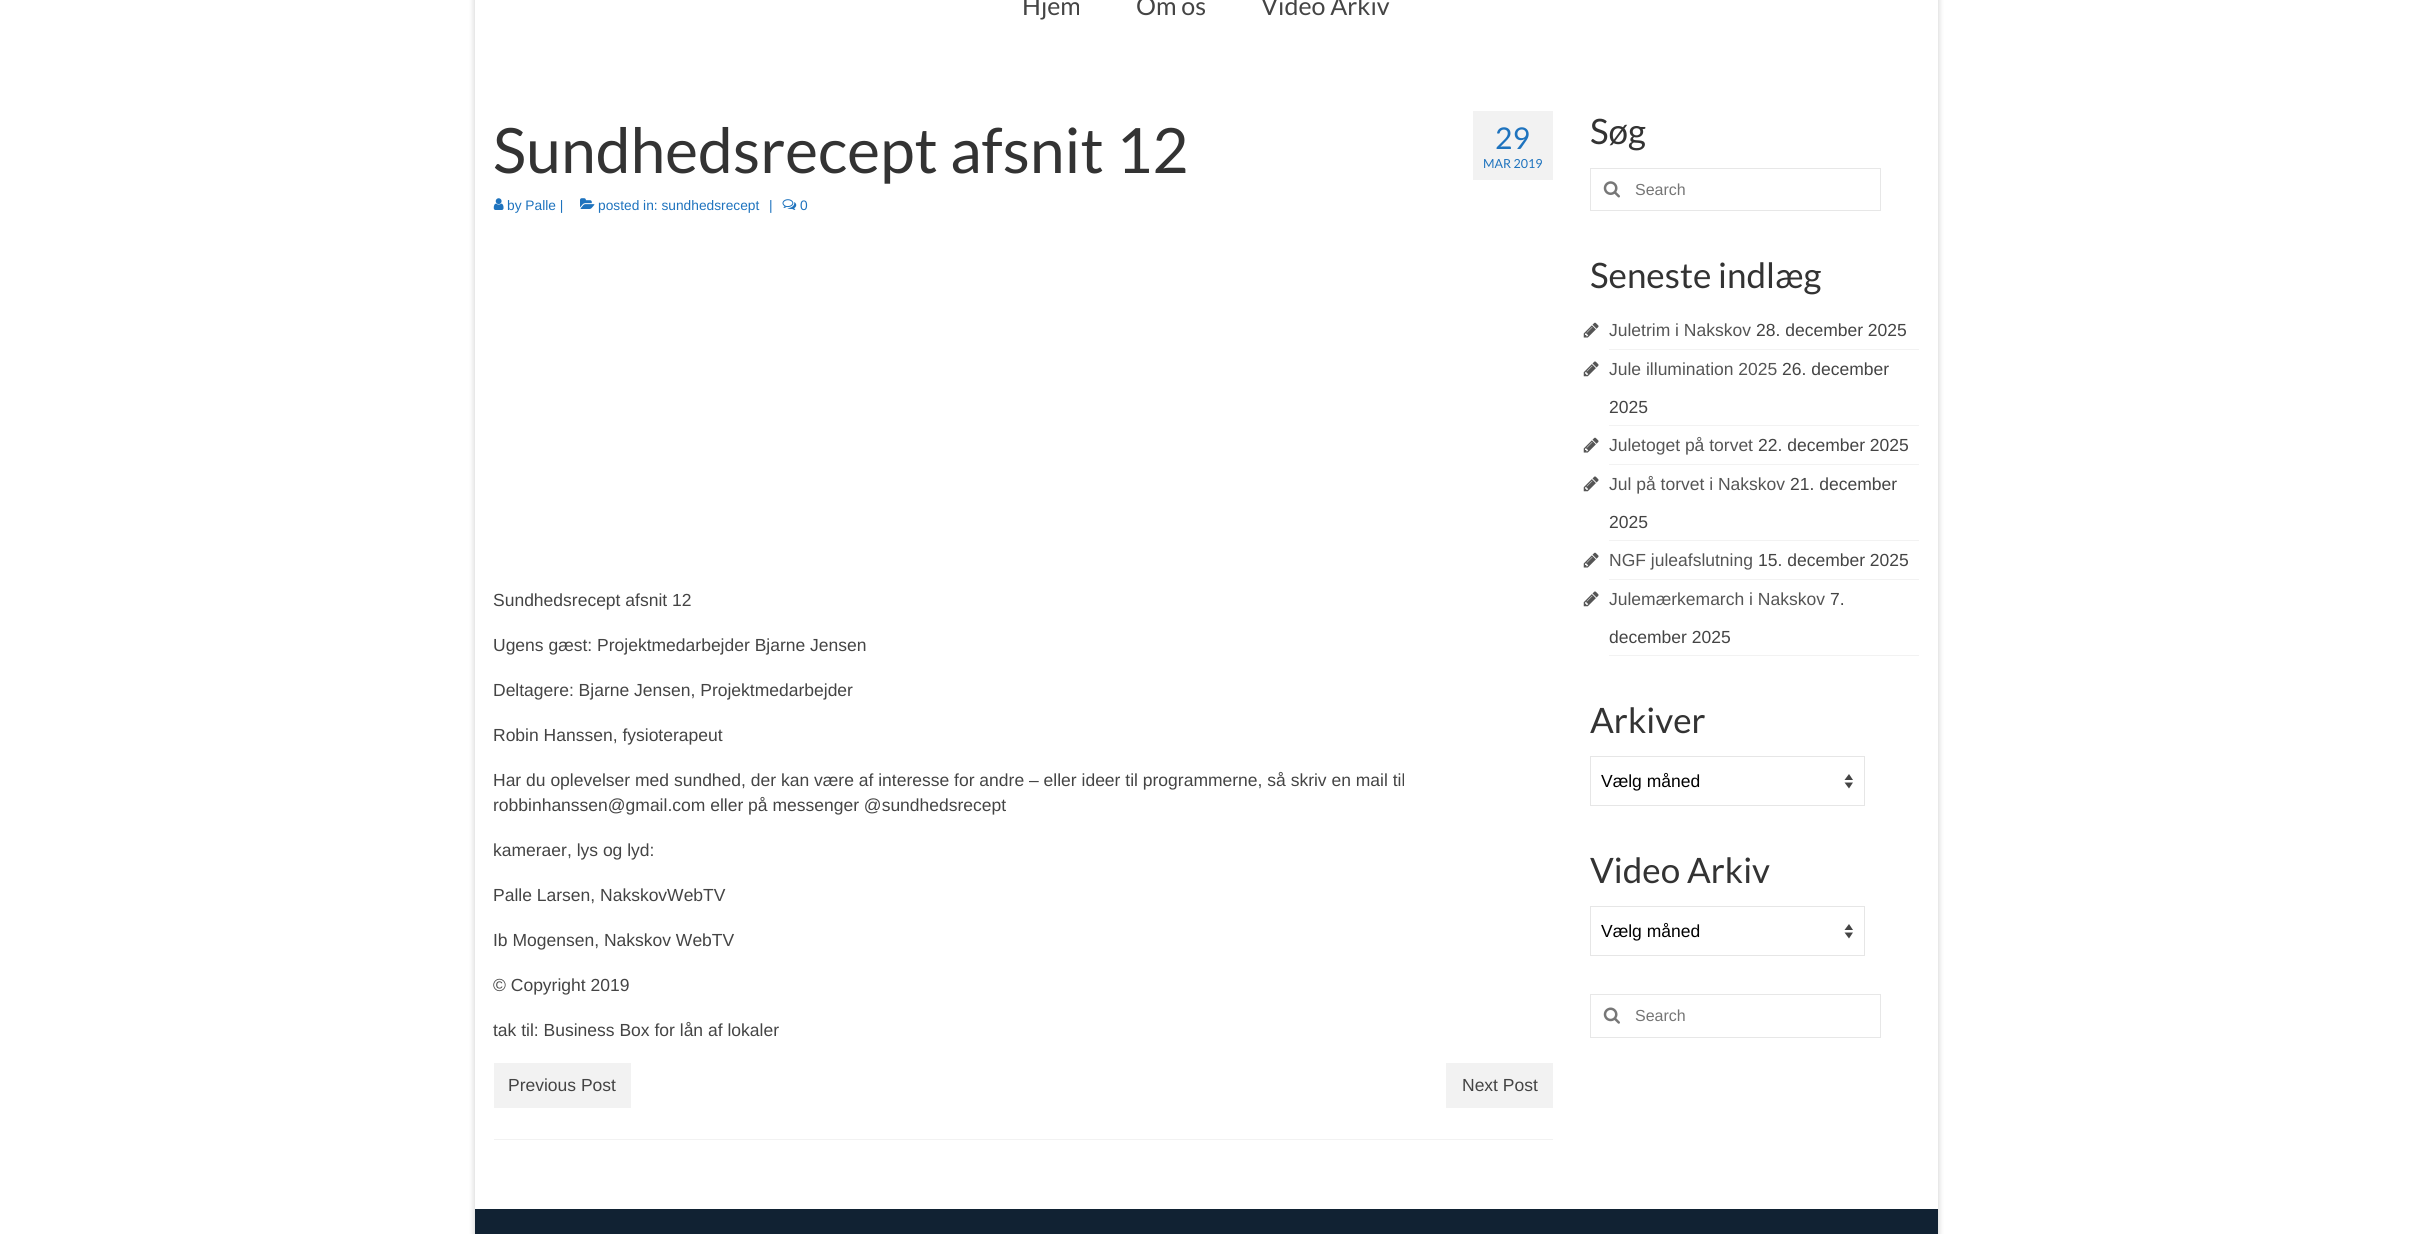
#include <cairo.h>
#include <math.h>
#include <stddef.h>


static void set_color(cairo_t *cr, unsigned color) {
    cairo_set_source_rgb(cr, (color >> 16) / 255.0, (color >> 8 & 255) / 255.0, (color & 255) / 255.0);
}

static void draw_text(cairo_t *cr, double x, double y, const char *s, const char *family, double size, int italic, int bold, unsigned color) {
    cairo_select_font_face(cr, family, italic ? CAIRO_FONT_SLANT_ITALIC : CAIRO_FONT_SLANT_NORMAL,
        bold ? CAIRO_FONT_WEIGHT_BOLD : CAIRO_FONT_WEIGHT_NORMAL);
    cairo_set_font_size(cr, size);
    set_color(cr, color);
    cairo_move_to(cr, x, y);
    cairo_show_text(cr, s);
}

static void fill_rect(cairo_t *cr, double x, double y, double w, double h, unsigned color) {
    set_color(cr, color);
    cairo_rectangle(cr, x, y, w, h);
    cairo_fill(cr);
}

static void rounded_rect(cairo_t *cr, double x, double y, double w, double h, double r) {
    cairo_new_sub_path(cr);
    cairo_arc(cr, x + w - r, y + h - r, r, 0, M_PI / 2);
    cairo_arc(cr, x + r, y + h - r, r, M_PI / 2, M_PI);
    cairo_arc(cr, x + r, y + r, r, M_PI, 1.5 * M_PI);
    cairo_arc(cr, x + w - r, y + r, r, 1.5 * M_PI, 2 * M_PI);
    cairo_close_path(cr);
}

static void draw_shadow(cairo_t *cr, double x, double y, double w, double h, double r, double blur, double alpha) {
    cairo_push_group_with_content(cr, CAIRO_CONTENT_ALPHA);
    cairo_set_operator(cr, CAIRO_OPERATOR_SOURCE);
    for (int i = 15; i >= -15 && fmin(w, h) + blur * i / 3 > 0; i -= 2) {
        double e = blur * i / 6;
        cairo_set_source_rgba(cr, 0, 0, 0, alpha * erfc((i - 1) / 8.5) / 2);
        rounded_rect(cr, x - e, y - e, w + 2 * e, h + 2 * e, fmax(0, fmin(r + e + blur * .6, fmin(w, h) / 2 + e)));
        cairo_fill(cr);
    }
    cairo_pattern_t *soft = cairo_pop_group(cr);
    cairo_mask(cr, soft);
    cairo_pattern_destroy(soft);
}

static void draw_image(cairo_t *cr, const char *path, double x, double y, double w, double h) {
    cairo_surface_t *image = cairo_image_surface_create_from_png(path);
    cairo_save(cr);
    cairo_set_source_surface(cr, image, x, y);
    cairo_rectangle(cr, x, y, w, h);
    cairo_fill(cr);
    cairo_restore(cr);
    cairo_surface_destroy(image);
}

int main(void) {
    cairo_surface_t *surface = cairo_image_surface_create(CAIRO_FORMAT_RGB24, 2411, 1234);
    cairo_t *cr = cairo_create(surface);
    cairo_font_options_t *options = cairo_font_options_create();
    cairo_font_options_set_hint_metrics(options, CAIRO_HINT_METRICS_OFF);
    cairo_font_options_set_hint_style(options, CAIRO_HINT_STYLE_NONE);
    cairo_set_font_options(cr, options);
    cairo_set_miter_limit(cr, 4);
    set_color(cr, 0xFFFFFF);
    cairo_paint(cr);
    set_color(cr, 0x000000);
    draw_shadow(cr, 474, -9, 1465, 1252, 0, 3, 0.16);
    fill_rect(cr, 475, 0, 1463, 1209, 0xFFFFFF);
    draw_text(cr, 1022, 15, "Hjem", "Lato", 25, 0, 0, 0x444444);
    draw_text(cr, 1136, 15, "Om os", "Lato", 25, 0, 0, 0x444444);
    draw_text(cr, 1261, 15, "Video Arkiv", "Lato", 25, 0, 0, 0x444444);
    draw_text(cr, 493, 173, "Sundhedsrecept afsnit 12", "Lato", 62.5, 0, 0, 0x333333);
    draw_image(cr, "assets/img1.png", 493, 198, 11, 12);
    draw_text(cr, 507, 210, "by Palle |", "Liberation Sans", 13.75, 0, 0, 0x1E73BE);
    draw_image(cr, "assets/img2.png", 580, 198, 15, 11);
    draw_text(cr, 598, 210, "posted in: sundhedsrecept", "Liberation Sans", 13.75, 0, 0, 0x1E73BE);
    draw_text(cr, 769, 210, "|", "Liberation Sans", 13.75, 0, 0, 0x1E73BE);
    draw_image(cr, "assets/img3.png", 782, 199, 15, 11);
    draw_text(cr, 800, 210, "0", "Liberation Sans", 13.75, 0, 0, 0x1E73BE);
    fill_rect(cr, 1473, 111, 80, 69, 0xF2F2F2);
    draw_text(cr, 1495, 149, "29", "Lato", 30, 0, 0, 0x1E73BE);
    draw_text(cr, 1483, 168, "MAR 2019", "Lato", 12.5, 0, 0, 0x1E73BE);
    draw_text(cr, 493, 606, "Sundhedsrecept afsnit 12", "Liberation Sans", 17.5, 0, 0, 0x444444);
    draw_text(cr, 493, 651, "Ugens gæst: Projektmedarbejder Bjarne Jensen", "Liberation Sans", 17.5, 0, 0, 0x444444);
    draw_text(cr, 493, 696, "Deltagere: Bjarne Jensen, Projektmedarbejder", "Liberation Sans", 17.5, 0, 0, 0x444444);
    draw_text(cr, 493, 741, "Robin Hanssen, fysioterapeut", "Liberation Sans", 17.5, 0, 0, 0x444444);
    draw_text(cr, 493, 786, "Har du oplevelser med sundhed, der kan være af interesse for andre – eller ideer til programmerne, så skriv en mail til", "Liberation Sans", 17.5, 0, 0, 0x444444);
    draw_text(cr, 493, 811, "robbinhanssen@gmail.com eller på messenger @sundhedsrecept", "Liberation Sans", 17.5, 0, 0, 0x444444);
    draw_text(cr, 493, 856, "kameraer, lys og lyd:", "Liberation Sans", 17.5, 0, 0, 0x444444);
    draw_text(cr, 493, 901, "Palle Larsen, NakskovWebTV", "Liberation Sans", 17.5, 0, 0, 0x444444);
    draw_text(cr, 493, 946, "Ib Mogensen, Nakskov WebTV", "Liberation Sans", 17.5, 0, 0, 0x444444);
    draw_text(cr, 493, 991, "© Copyright 2019", "Liberation Sans", 17.5, 0, 0, 0x444444);
    draw_text(cr, 493, 1036, "tak til: Business Box for lån af lokaler", "Liberation Sans", 17.5, 0, 0, 0x444444);
    fill_rect(cr, 494, 1139, 1059, 1, 0xF2F2F2);
    fill_rect(cr, 494, 1063, 137, 45, 0xF2F2F2);
    draw_text(cr, 508, 1091, "Previous Post", "Liberation Sans", 17.5, 0, 0, 0x444444);
    fill_rect(cr, 1446, 1063, 107, 45, 0xF2F2F2);
    draw_text(cr, 1462, 1091, "Next Post", "Liberation Sans", 17.5, 0, 0, 0x444444);
    draw_text(cr, 1590, 144, "Søg", "Lato", 35, 0, 0, 0x333333);
    cairo_rectangle(cr, 1590.5, 168.5, 290, 42);
    set_color(cr, 0xE7E7E7);
    cairo_set_line_width(cr, 1);
    cairo_stroke(cr);
    draw_image(cr, "assets/img4.png", 1603, 181, 17, 17);
    draw_text(cr, 1635, 195, "Search", "Liberation Sans", 16, 0, 0, 0x757575);
    draw_text(cr, 1590, 288, "Seneste indlæg", "Lato", 35, 0, 0, 0x333333);
    fill_rect(cr, 1609, 349, 310, 1, 0xF2F2F2);
    draw_image(cr, "assets/img5.png", 1583, 322, 16, 16);
    draw_text(cr, 1609, 336, "Juletrim i Nakskov", "Liberation Sans", 17.5, 0, 0, 0x555555);
    draw_text(cr, 1756, 336, "28. december 2025", "Liberation Sans", 17.5, 0, 0, 0x444444);
    fill_rect(cr, 1609, 425, 310, 1, 0xF2F2F2);
    draw_image(cr, "assets/img6.png", 1583, 361, 16, 16);
    draw_text(cr, 1609, 375, "Jule illumination 2025", "Liberation Sans", 17.5, 0, 0, 0x555555);
    draw_text(cr, 1782, 375, "26. december", "Liberation Sans", 17.5, 0, 0, 0x444444);
    draw_text(cr, 1609, 413, "2025", "Liberation Sans", 17.5, 0, 0, 0x444444);
    fill_rect(cr, 1609, 464, 310, 1, 0xF2F2F2);
    draw_image(cr, "assets/img5.png", 1583, 437, 16, 16);
    draw_text(cr, 1609, 451, "Juletoget på torvet", "Liberation Sans", 17.5, 0, 0, 0x555555);
    draw_text(cr, 1758, 451, "22. december 2025", "Liberation Sans", 17.5, 0, 0, 0x444444);
    fill_rect(cr, 1609, 540, 310, 1, 0xF2F2F2);
    draw_image(cr, "assets/img6.png", 1583, 476, 16, 16);
    draw_text(cr, 1609, 490, "Jul på torvet i Nakskov", "Liberation Sans", 17.5, 0, 0, 0x555555);
    draw_text(cr, 1790, 490, "21. december", "Liberation Sans", 17.5, 0, 0, 0x444444);
    draw_text(cr, 1609, 528, "2025", "Liberation Sans", 17.5, 0, 0, 0x444444);
    fill_rect(cr, 1609, 579, 310, 1, 0xF2F2F2);
    draw_image(cr, "assets/img5.png", 1583, 552, 16, 16);
    draw_text(cr, 1609, 566, "NGF juleafslutning", "Liberation Sans", 17.5, 0, 0, 0x555555);
    draw_text(cr, 1758, 566, "15. december 2025", "Liberation Sans", 17.5, 0, 0, 0x444444);
    fill_rect(cr, 1609, 655, 310, 1, 0xF2F2F2);
    draw_image(cr, "assets/img6.png", 1583, 591, 16, 16);
    draw_text(cr, 1609, 605, "Julemærkemarch i Nakskov", "Liberation Sans", 17.5, 0, 0, 0x555555);
    draw_text(cr, 1830, 605, "7.", "Liberation Sans", 17.5, 0, 0, 0x444444);
    draw_text(cr, 1609, 643, "december 2025", "Liberation Sans", 17.5, 0, 0, 0x444444);
    draw_text(cr, 1590, 733, "Arkiver", "Lato", 35, 0, 0, 0x333333);
    set_color(cr, 0x444444);
    cairo_new_path(cr);
    cairo_move_to(cr, 1844.5, 780);
    cairo_line_to(cr, 1849, 774);
    cairo_line_to(cr, 1853, 780);
    cairo_close_path(cr);
    cairo_move_to(cr, 1853, 782.5);
    cairo_line_to(cr, 1849, 788.5);
    cairo_line_to(cr, 1844.5, 782.5);
    cairo_close_path(cr);
    cairo_fill(cr);
    cairo_rectangle(cr, 1590.5, 756.5, 274, 49);
    set_color(cr, 0xE6E6E6);
    cairo_stroke(cr);
    draw_text(cr, 1601, 787, "Vælg måned", "Liberation Sans", 17.5, 0, 0, 0x000000);
    draw_text(cr, 1590, 883, "Video Arkiv", "Lato", 35, 0, 0, 0x333333);
    set_color(cr, 0x444444);
    cairo_new_path(cr);
    cairo_move_to(cr, 1844.5, 930);
    cairo_line_to(cr, 1849, 924);
    cairo_line_to(cr, 1853, 930);
    cairo_close_path(cr);
    cairo_move_to(cr, 1853, 932.5);
    cairo_line_to(cr, 1849, 938.5);
    cairo_line_to(cr, 1844.5, 932.5);
    cairo_close_path(cr);
    cairo_fill(cr);
    cairo_rectangle(cr, 1590.5, 906.5, 274, 49);
    set_color(cr, 0xE6E6E6);
    cairo_stroke(cr);
    draw_text(cr, 1601, 937, "Vælg måned", "Liberation Sans", 17.5, 0, 0, 0x000000);
    cairo_rectangle(cr, 1590.5, 994.5, 290, 43);
    set_color(cr, 0xE7E7E7);
    cairo_stroke(cr);
    draw_image(cr, "assets/img7.png", 1603, 1007, 17, 17);
    draw_text(cr, 1635, 1021, "Search", "Liberation Sans", 16, 0, 0, 0x757575);
    fill_rect(cr, 475, 1209, 1463, 25, 0x112233);
    cairo_surface_write_to_png(surface, "output.png");
    cairo_font_options_destroy(options);
    cairo_destroy(cr);
    cairo_surface_destroy(surface);
    return 0;
}
